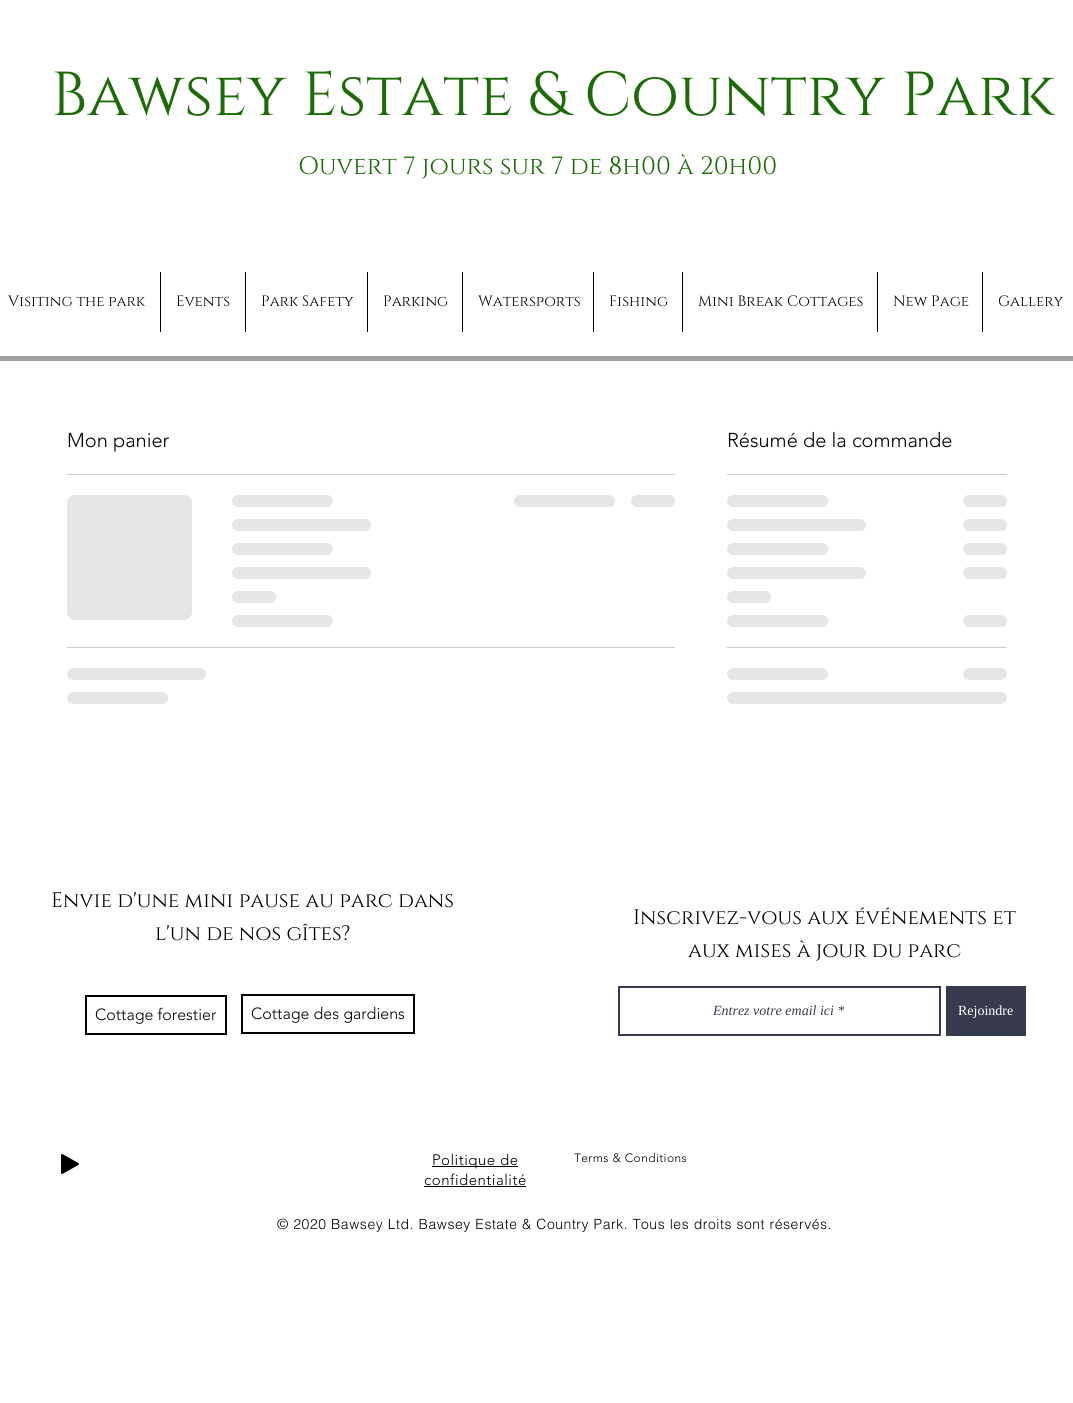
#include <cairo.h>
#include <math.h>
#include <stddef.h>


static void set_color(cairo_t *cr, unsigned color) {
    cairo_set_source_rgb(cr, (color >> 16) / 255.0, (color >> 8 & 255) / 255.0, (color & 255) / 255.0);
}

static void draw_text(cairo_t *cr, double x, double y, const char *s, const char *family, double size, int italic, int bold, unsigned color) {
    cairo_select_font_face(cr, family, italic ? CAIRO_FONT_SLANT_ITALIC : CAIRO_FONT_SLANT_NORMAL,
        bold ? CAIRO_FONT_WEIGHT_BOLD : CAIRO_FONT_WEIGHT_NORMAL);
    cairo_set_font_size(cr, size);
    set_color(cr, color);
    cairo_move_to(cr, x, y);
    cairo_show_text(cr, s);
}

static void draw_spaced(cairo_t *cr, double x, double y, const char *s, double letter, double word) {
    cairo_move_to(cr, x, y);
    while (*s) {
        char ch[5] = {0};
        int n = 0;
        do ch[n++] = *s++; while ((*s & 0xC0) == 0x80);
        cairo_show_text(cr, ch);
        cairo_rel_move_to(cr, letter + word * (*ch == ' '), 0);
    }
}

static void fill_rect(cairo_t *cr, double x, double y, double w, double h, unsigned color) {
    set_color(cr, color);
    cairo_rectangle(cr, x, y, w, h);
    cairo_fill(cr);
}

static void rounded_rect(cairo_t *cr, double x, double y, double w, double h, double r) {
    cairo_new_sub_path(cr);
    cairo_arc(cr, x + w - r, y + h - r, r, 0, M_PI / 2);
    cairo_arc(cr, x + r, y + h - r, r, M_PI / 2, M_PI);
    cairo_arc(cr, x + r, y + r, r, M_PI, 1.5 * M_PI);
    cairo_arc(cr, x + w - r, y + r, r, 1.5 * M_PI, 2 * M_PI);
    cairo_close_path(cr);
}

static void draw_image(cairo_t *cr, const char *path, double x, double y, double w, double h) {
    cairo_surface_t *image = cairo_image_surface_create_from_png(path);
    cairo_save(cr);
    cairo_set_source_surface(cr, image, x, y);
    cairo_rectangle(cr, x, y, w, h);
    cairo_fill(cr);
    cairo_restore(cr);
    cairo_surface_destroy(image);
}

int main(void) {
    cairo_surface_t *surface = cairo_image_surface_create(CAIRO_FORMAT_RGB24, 1073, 1403);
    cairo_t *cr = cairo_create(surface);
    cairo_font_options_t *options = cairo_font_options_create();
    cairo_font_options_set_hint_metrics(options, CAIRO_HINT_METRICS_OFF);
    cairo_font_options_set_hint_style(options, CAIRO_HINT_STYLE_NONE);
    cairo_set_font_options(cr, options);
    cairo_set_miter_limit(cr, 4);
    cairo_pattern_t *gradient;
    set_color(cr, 0xFFFFFF);
    cairo_paint(cr);
    draw_text(cr, 51, 115, "Bawsey Estate & Country Park", "Cinzel", 62, 0, 0, 0x1B6B07);
    draw_text(cr, 298, 174, "Ouvert 7 jours sur 7 de 8h00 à 20h00", "Cinzel", 25, 0, 0, 0x1B6B07);
    draw_text(cr, 8, 306, "Visiting the park", "Cinzel", 15, 0, 0, 0x000000);
    fill_rect(cr, 160, 272, 1, 60, 0x000000);
    draw_text(cr, 176, 306, "Events", "Cinzel", 15, 0, 0, 0x000000);
    fill_rect(cr, 245, 272, 1, 60, 0x000000);
    draw_text(cr, 261, 306, "Park Safety", "Cinzel", 15, 0, 0, 0x000000);
    fill_rect(cr, 367, 272, 1, 60, 0x000000);
    draw_text(cr, 383, 306, "Parking", "Cinzel", 15, 0, 0, 0x000000);
    fill_rect(cr, 462, 272, 1, 60, 0x000000);
    draw_text(cr, 478, 306, "Watersports", "Cinzel", 15, 0, 0, 0x000000);
    fill_rect(cr, 593, 272, 1, 60, 0x000000);
    draw_text(cr, 609, 306, "Fishing", "Cinzel", 15, 0, 0, 0x000000);
    fill_rect(cr, 682, 272, 1, 60, 0x000000);
    draw_text(cr, 698, 306, "Mini Break Cottages", "Cinzel", 15, 0, 0, 0x000000);
    fill_rect(cr, 877, 272, 1, 60, 0x000000);
    draw_text(cr, 893, 306, "New Page", "Cinzel", 15, 0, 0, 0x000000);
    fill_rect(cr, 982, 272, 1, 60, 0x000000);
    draw_text(cr, 998, 306, "Gallery", "Cinzel", 15, 0, 0, 0x000000);
    fill_rect(cr, 0, 356, 1073, 5, 0xA0A09F);
    fill_rect(cr, 67, 474, 608, 1, 0xCCCCCC);
    draw_text(cr, 67, 447, "Mon panier", "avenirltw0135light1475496 Light", 20, 0, 0, 0x000000);
    gradient = cairo_pattern_create_linear(67, 558, 567, 558);
    cairo_pattern_add_color_stop_rgba(gradient, 0.25, 0.902, 0.902, 0.902, 1);
    cairo_pattern_add_color_stop_rgba(gradient, 0.37, 0.8, 0.8, 0.8, 1);
    cairo_pattern_add_color_stop_rgba(gradient, 0.63, 0.902, 0.902, 0.902, 1);
    cairo_set_source(cr, gradient);
    cairo_pattern_destroy(gradient);
    rounded_rect(cr, 67, 495, 125, 125, 8);
    cairo_fill(cr);
    gradient = cairo_pattern_create_linear(232, 501, 636, 501);
    cairo_pattern_add_color_stop_rgba(gradient, 0.25, 0.902, 0.902, 0.902, 1);
    cairo_pattern_add_color_stop_rgba(gradient, 0.37, 0.8, 0.8, 0.8, 1);
    cairo_pattern_add_color_stop_rgba(gradient, 0.63, 0.902, 0.902, 0.902, 1);
    cairo_set_source(cr, gradient);
    cairo_pattern_destroy(gradient);
    rounded_rect(cr, 232, 495, 101, 12, 6);
    cairo_fill(cr);
    gradient = cairo_pattern_create_linear(232, 525, 788, 525);
    cairo_pattern_add_color_stop_rgba(gradient, 0.25, 0.902, 0.902, 0.902, 1);
    cairo_pattern_add_color_stop_rgba(gradient, 0.37, 0.8, 0.8, 0.8, 1);
    cairo_pattern_add_color_stop_rgba(gradient, 0.63, 0.902, 0.902, 0.902, 1);
    cairo_set_source(cr, gradient);
    cairo_pattern_destroy(gradient);
    rounded_rect(cr, 232, 519, 139, 12, 6);
    cairo_fill(cr);
    gradient = cairo_pattern_create_linear(232, 549, 636, 549);
    cairo_pattern_add_color_stop_rgba(gradient, 0.25, 0.902, 0.902, 0.902, 1);
    cairo_pattern_add_color_stop_rgba(gradient, 0.37, 0.8, 0.8, 0.8, 1);
    cairo_pattern_add_color_stop_rgba(gradient, 0.63, 0.902, 0.902, 0.902, 1);
    cairo_set_source(cr, gradient);
    cairo_pattern_destroy(gradient);
    rounded_rect(cr, 232, 543, 101, 12, 6);
    cairo_fill(cr);
    gradient = cairo_pattern_create_linear(232, 573, 788, 573);
    cairo_pattern_add_color_stop_rgba(gradient, 0.25, 0.902, 0.902, 0.902, 1);
    cairo_pattern_add_color_stop_rgba(gradient, 0.37, 0.8, 0.8, 0.8, 1);
    cairo_pattern_add_color_stop_rgba(gradient, 0.63, 0.902, 0.902, 0.902, 1);
    cairo_set_source(cr, gradient);
    cairo_pattern_destroy(gradient);
    rounded_rect(cr, 232, 567, 139, 12, 6);
    cairo_fill(cr);
    gradient = cairo_pattern_create_linear(232, 597, 408, 597);
    cairo_pattern_add_color_stop_rgba(gradient, 0.25, 0.902, 0.902, 0.902, 1);
    cairo_pattern_add_color_stop_rgba(gradient, 0.37, 0.8, 0.8, 0.8, 1);
    cairo_pattern_add_color_stop_rgba(gradient, 0.63, 0.902, 0.902, 0.902, 1);
    cairo_set_source(cr, gradient);
    cairo_pattern_destroy(gradient);
    rounded_rect(cr, 232, 591, 44, 12, 6);
    cairo_fill(cr);
    gradient = cairo_pattern_create_linear(232, 621, 636, 621);
    cairo_pattern_add_color_stop_rgba(gradient, 0.25, 0.902, 0.902, 0.902, 1);
    cairo_pattern_add_color_stop_rgba(gradient, 0.37, 0.8, 0.8, 0.8, 1);
    cairo_pattern_add_color_stop_rgba(gradient, 0.63, 0.902, 0.902, 0.902, 1);
    cairo_set_source(cr, gradient);
    cairo_pattern_destroy(gradient);
    rounded_rect(cr, 232, 615, 101, 12, 6);
    cairo_fill(cr);
    gradient = cairo_pattern_create_linear(514, 501, 918, 501);
    cairo_pattern_add_color_stop_rgba(gradient, 0.25, 0.902, 0.902, 0.902, 1);
    cairo_pattern_add_color_stop_rgba(gradient, 0.37, 0.8, 0.8, 0.8, 1);
    cairo_pattern_add_color_stop_rgba(gradient, 0.63, 0.902, 0.902, 0.902, 1);
    cairo_set_source(cr, gradient);
    cairo_pattern_destroy(gradient);
    rounded_rect(cr, 514, 495, 101, 12, 6);
    cairo_fill(cr);
    gradient = cairo_pattern_create_linear(631, 501, 807, 501);
    cairo_pattern_add_color_stop_rgba(gradient, 0.25, 0.902, 0.902, 0.902, 1);
    cairo_pattern_add_color_stop_rgba(gradient, 0.37, 0.8, 0.8, 0.8, 1);
    cairo_pattern_add_color_stop_rgba(gradient, 0.63, 0.902, 0.902, 0.902, 1);
    cairo_set_source(cr, gradient);
    cairo_pattern_destroy(gradient);
    rounded_rect(cr, 631, 495, 44, 12, 6);
    cairo_fill(cr);
    fill_rect(cr, 67, 647, 608, 1, 0xCCCCCC);
    gradient = cairo_pattern_create_linear(67, 674, 623, 674);
    cairo_pattern_add_color_stop_rgba(gradient, 0.25, 0.902, 0.902, 0.902, 1);
    cairo_pattern_add_color_stop_rgba(gradient, 0.37, 0.8, 0.8, 0.8, 1);
    cairo_pattern_add_color_stop_rgba(gradient, 0.63, 0.902, 0.902, 0.902, 1);
    cairo_set_source(cr, gradient);
    cairo_pattern_destroy(gradient);
    rounded_rect(cr, 67, 668, 139, 12, 6);
    cairo_fill(cr);
    gradient = cairo_pattern_create_linear(67, 698, 471, 698);
    cairo_pattern_add_color_stop_rgba(gradient, 0.25, 0.902, 0.902, 0.902, 1);
    cairo_pattern_add_color_stop_rgba(gradient, 0.37, 0.8, 0.8, 0.8, 1);
    cairo_pattern_add_color_stop_rgba(gradient, 0.63, 0.902, 0.902, 0.902, 1);
    cairo_set_source(cr, gradient);
    cairo_pattern_destroy(gradient);
    rounded_rect(cr, 67, 692, 101, 12, 6);
    cairo_fill(cr);
    fill_rect(cr, 727, 474, 280, 1, 0xCCCCCC);
    draw_text(cr, 727, 447, "Résumé de la commande", "avenirltw0135light1475496 Light", 20, 0, 0, 0x000000);
    gradient = cairo_pattern_create_linear(727, 501, 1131, 501);
    cairo_pattern_add_color_stop_rgba(gradient, 0.25, 0.902, 0.902, 0.902, 1);
    cairo_pattern_add_color_stop_rgba(gradient, 0.37, 0.8, 0.8, 0.8, 1);
    cairo_pattern_add_color_stop_rgba(gradient, 0.63, 0.902, 0.902, 0.902, 1);
    cairo_set_source(cr, gradient);
    cairo_pattern_destroy(gradient);
    rounded_rect(cr, 727, 495, 101, 12, 6);
    cairo_fill(cr);
    gradient = cairo_pattern_create_linear(963, 501, 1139, 501);
    cairo_pattern_add_color_stop_rgba(gradient, 0.25, 0.902, 0.902, 0.902, 1);
    cairo_pattern_add_color_stop_rgba(gradient, 0.37, 0.8, 0.8, 0.8, 1);
    cairo_pattern_add_color_stop_rgba(gradient, 0.63, 0.902, 0.902, 0.902, 1);
    cairo_set_source(cr, gradient);
    cairo_pattern_destroy(gradient);
    rounded_rect(cr, 963, 495, 44, 12, 6);
    cairo_fill(cr);
    gradient = cairo_pattern_create_linear(727, 525, 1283, 525);
    cairo_pattern_add_color_stop_rgba(gradient, 0.25, 0.902, 0.902, 0.902, 1);
    cairo_pattern_add_color_stop_rgba(gradient, 0.37, 0.8, 0.8, 0.8, 1);
    cairo_pattern_add_color_stop_rgba(gradient, 0.63, 0.902, 0.902, 0.902, 1);
    cairo_set_source(cr, gradient);
    cairo_pattern_destroy(gradient);
    rounded_rect(cr, 727, 519, 139, 12, 6);
    cairo_fill(cr);
    gradient = cairo_pattern_create_linear(963, 525, 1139, 525);
    cairo_pattern_add_color_stop_rgba(gradient, 0.25, 0.902, 0.902, 0.902, 1);
    cairo_pattern_add_color_stop_rgba(gradient, 0.37, 0.8, 0.8, 0.8, 1);
    cairo_pattern_add_color_stop_rgba(gradient, 0.63, 0.902, 0.902, 0.902, 1);
    cairo_set_source(cr, gradient);
    cairo_pattern_destroy(gradient);
    rounded_rect(cr, 963, 519, 44, 12, 6);
    cairo_fill(cr);
    gradient = cairo_pattern_create_linear(727, 549, 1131, 549);
    cairo_pattern_add_color_stop_rgba(gradient, 0.25, 0.902, 0.902, 0.902, 1);
    cairo_pattern_add_color_stop_rgba(gradient, 0.37, 0.8, 0.8, 0.8, 1);
    cairo_pattern_add_color_stop_rgba(gradient, 0.63, 0.902, 0.902, 0.902, 1);
    cairo_set_source(cr, gradient);
    cairo_pattern_destroy(gradient);
    rounded_rect(cr, 727, 543, 101, 12, 6);
    cairo_fill(cr);
    gradient = cairo_pattern_create_linear(963, 549, 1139, 549);
    cairo_pattern_add_color_stop_rgba(gradient, 0.25, 0.902, 0.902, 0.902, 1);
    cairo_pattern_add_color_stop_rgba(gradient, 0.37, 0.8, 0.8, 0.8, 1);
    cairo_pattern_add_color_stop_rgba(gradient, 0.63, 0.902, 0.902, 0.902, 1);
    cairo_set_source(cr, gradient);
    cairo_pattern_destroy(gradient);
    rounded_rect(cr, 963, 543, 44, 12, 6);
    cairo_fill(cr);
    gradient = cairo_pattern_create_linear(727, 573, 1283, 573);
    cairo_pattern_add_color_stop_rgba(gradient, 0.25, 0.902, 0.902, 0.902, 1);
    cairo_pattern_add_color_stop_rgba(gradient, 0.37, 0.8, 0.8, 0.8, 1);
    cairo_pattern_add_color_stop_rgba(gradient, 0.63, 0.902, 0.902, 0.902, 1);
    cairo_set_source(cr, gradient);
    cairo_pattern_destroy(gradient);
    rounded_rect(cr, 727, 567, 139, 12, 6);
    cairo_fill(cr);
    gradient = cairo_pattern_create_linear(963, 573, 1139, 573);
    cairo_pattern_add_color_stop_rgba(gradient, 0.25, 0.902, 0.902, 0.902, 1);
    cairo_pattern_add_color_stop_rgba(gradient, 0.37, 0.8, 0.8, 0.8, 1);
    cairo_pattern_add_color_stop_rgba(gradient, 0.63, 0.902, 0.902, 0.902, 1);
    cairo_set_source(cr, gradient);
    cairo_pattern_destroy(gradient);
    rounded_rect(cr, 963, 567, 44, 12, 6);
    cairo_fill(cr);
    gradient = cairo_pattern_create_linear(727, 597, 903, 597);
    cairo_pattern_add_color_stop_rgba(gradient, 0.25, 0.902, 0.902, 0.902, 1);
    cairo_pattern_add_color_stop_rgba(gradient, 0.37, 0.8, 0.8, 0.8, 1);
    cairo_pattern_add_color_stop_rgba(gradient, 0.63, 0.902, 0.902, 0.902, 1);
    cairo_set_source(cr, gradient);
    cairo_pattern_destroy(gradient);
    rounded_rect(cr, 727, 591, 44, 12, 6);
    cairo_fill(cr);
    gradient = cairo_pattern_create_linear(727, 621, 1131, 621);
    cairo_pattern_add_color_stop_rgba(gradient, 0.25, 0.902, 0.902, 0.902, 1);
    cairo_pattern_add_color_stop_rgba(gradient, 0.37, 0.8, 0.8, 0.8, 1);
    cairo_pattern_add_color_stop_rgba(gradient, 0.63, 0.902, 0.902, 0.902, 1);
    cairo_set_source(cr, gradient);
    cairo_pattern_destroy(gradient);
    rounded_rect(cr, 727, 615, 101, 12, 6);
    cairo_fill(cr);
    gradient = cairo_pattern_create_linear(963, 621, 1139, 621);
    cairo_pattern_add_color_stop_rgba(gradient, 0.25, 0.902, 0.902, 0.902, 1);
    cairo_pattern_add_color_stop_rgba(gradient, 0.37, 0.8, 0.8, 0.8, 1);
    cairo_pattern_add_color_stop_rgba(gradient, 0.63, 0.902, 0.902, 0.902, 1);
    cairo_set_source(cr, gradient);
    cairo_pattern_destroy(gradient);
    rounded_rect(cr, 963, 615, 44, 12, 6);
    cairo_fill(cr);
    fill_rect(cr, 727, 647, 280, 1, 0xCCCCCC);
    gradient = cairo_pattern_create_linear(727, 674, 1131, 674);
    cairo_pattern_add_color_stop_rgba(gradient, 0.25, 0.902, 0.902, 0.902, 1);
    cairo_pattern_add_color_stop_rgba(gradient, 0.37, 0.8, 0.8, 0.8, 1);
    cairo_pattern_add_color_stop_rgba(gradient, 0.63, 0.902, 0.902, 0.902, 1);
    cairo_set_source(cr, gradient);
    cairo_pattern_destroy(gradient);
    rounded_rect(cr, 727, 668, 101, 12, 6);
    cairo_fill(cr);
    gradient = cairo_pattern_create_linear(963, 674, 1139, 674);
    cairo_pattern_add_color_stop_rgba(gradient, 0.25, 0.902, 0.902, 0.902, 1);
    cairo_pattern_add_color_stop_rgba(gradient, 0.37, 0.8, 0.8, 0.8, 1);
    cairo_pattern_add_color_stop_rgba(gradient, 0.63, 0.902, 0.902, 0.902, 1);
    cairo_set_source(cr, gradient);
    cairo_pattern_destroy(gradient);
    rounded_rect(cr, 963, 668, 44, 12, 6);
    cairo_fill(cr);
    gradient = cairo_pattern_create_linear(727, 698, 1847, 698);
    cairo_pattern_add_color_stop_rgba(gradient, 0.25, 0.902, 0.902, 0.902, 1);
    cairo_pattern_add_color_stop_rgba(gradient, 0.37, 0.8, 0.8, 0.8, 1);
    cairo_pattern_add_color_stop_rgba(gradient, 0.63, 0.902, 0.902, 0.902, 1);
    cairo_set_source(cr, gradient);
    cairo_pattern_destroy(gradient);
    rounded_rect(cr, 727, 692, 280, 12, 6);
    cairo_fill(cr);
    draw_text(cr, 51, 907, "Envie d'une mini pause au parc dans", "Cinzel", 21, 0, 0, 0x000000);
    draw_text(cr, 155, 940, "l'un de nos gîtes?", "Cinzel", 21, 0, 0, 0x000000);
    draw_text(cr, 633, 924, "Inscrivez-vous aux événements et", "Cinzel", 21, 0, 0, 0x000000);
    draw_text(cr, 688, 957, "aux mises à jour du parc", "Cinzel", 21, 0, 0, 0x000000);
    cairo_rectangle(cr, 86, 996, 140, 38);
    cairo_stroke(cr);
    draw_text(cr, 95, 1020, "Cottage forestier", "avenirltw0135light1475496 Light", 16, 0, 0, 0x000000);
    cairo_rectangle(cr, 242, 995, 172, 38);
    cairo_stroke(cr);
    draw_text(cr, 251, 1019, "Cottage des gardiens", "avenirltw0135light1475496 Light", 16, 0, 0, 0x000000);
    cairo_rectangle(cr, 619, 987, 321, 48);
    set_color(cr, 0x373B4D);
    cairo_stroke(cr);
    draw_text(cr, 713, 1015, "Entrez votre email ici *", "Liberation Serif", 14, 1, 0, 0x373B4D);
    fill_rect(cr, 946, 986, 80, 50, 0x373B4D);
    draw_text(cr, 958, 1015, "Rejoindre", "Liberation Serif", 14, 0, 0, 0xFFFFFF);
    draw_image(cr, "assets/img1.png", 61, 1154, 18, 20);
    fill_rect(cr, 432, 1166, 86, 1, 0x000000);
    cairo_select_font_face(cr, "avenirltw0135light1475496 Light", CAIRO_FONT_SLANT_NORMAL, CAIRO_FONT_WEIGHT_NORMAL);
    cairo_set_font_size(cr, 15);
    draw_spaced(cr, 432, 1165, "Politique de", 0.5, 0);
    draw_spaced(cr, 424, 1185, "confidentialité", 0.5, 0);
    fill_rect(cr, 424, 1186, 102, 1, 0x000000);
    cairo_set_font_size(cr, 12);
    draw_spaced(cr, 574, 1162, "Terms & Conditions", 0.4, 0);
    cairo_select_font_face(cr, "helvetica Light", CAIRO_FONT_SLANT_NORMAL, CAIRO_FONT_WEIGHT_NORMAL);
    cairo_set_font_size(cr, 14);
    draw_spaced(cr, 277, 1229, "© 2020 Bawsey Ltd. Bawsey Estate & Country Park. Tous les droits sont réservés.", 0.55, 0);
    cairo_surface_write_to_png(surface, "output.png");
    cairo_font_options_destroy(options);
    cairo_destroy(cr);
    cairo_surface_destroy(surface);
    return 0;
}
